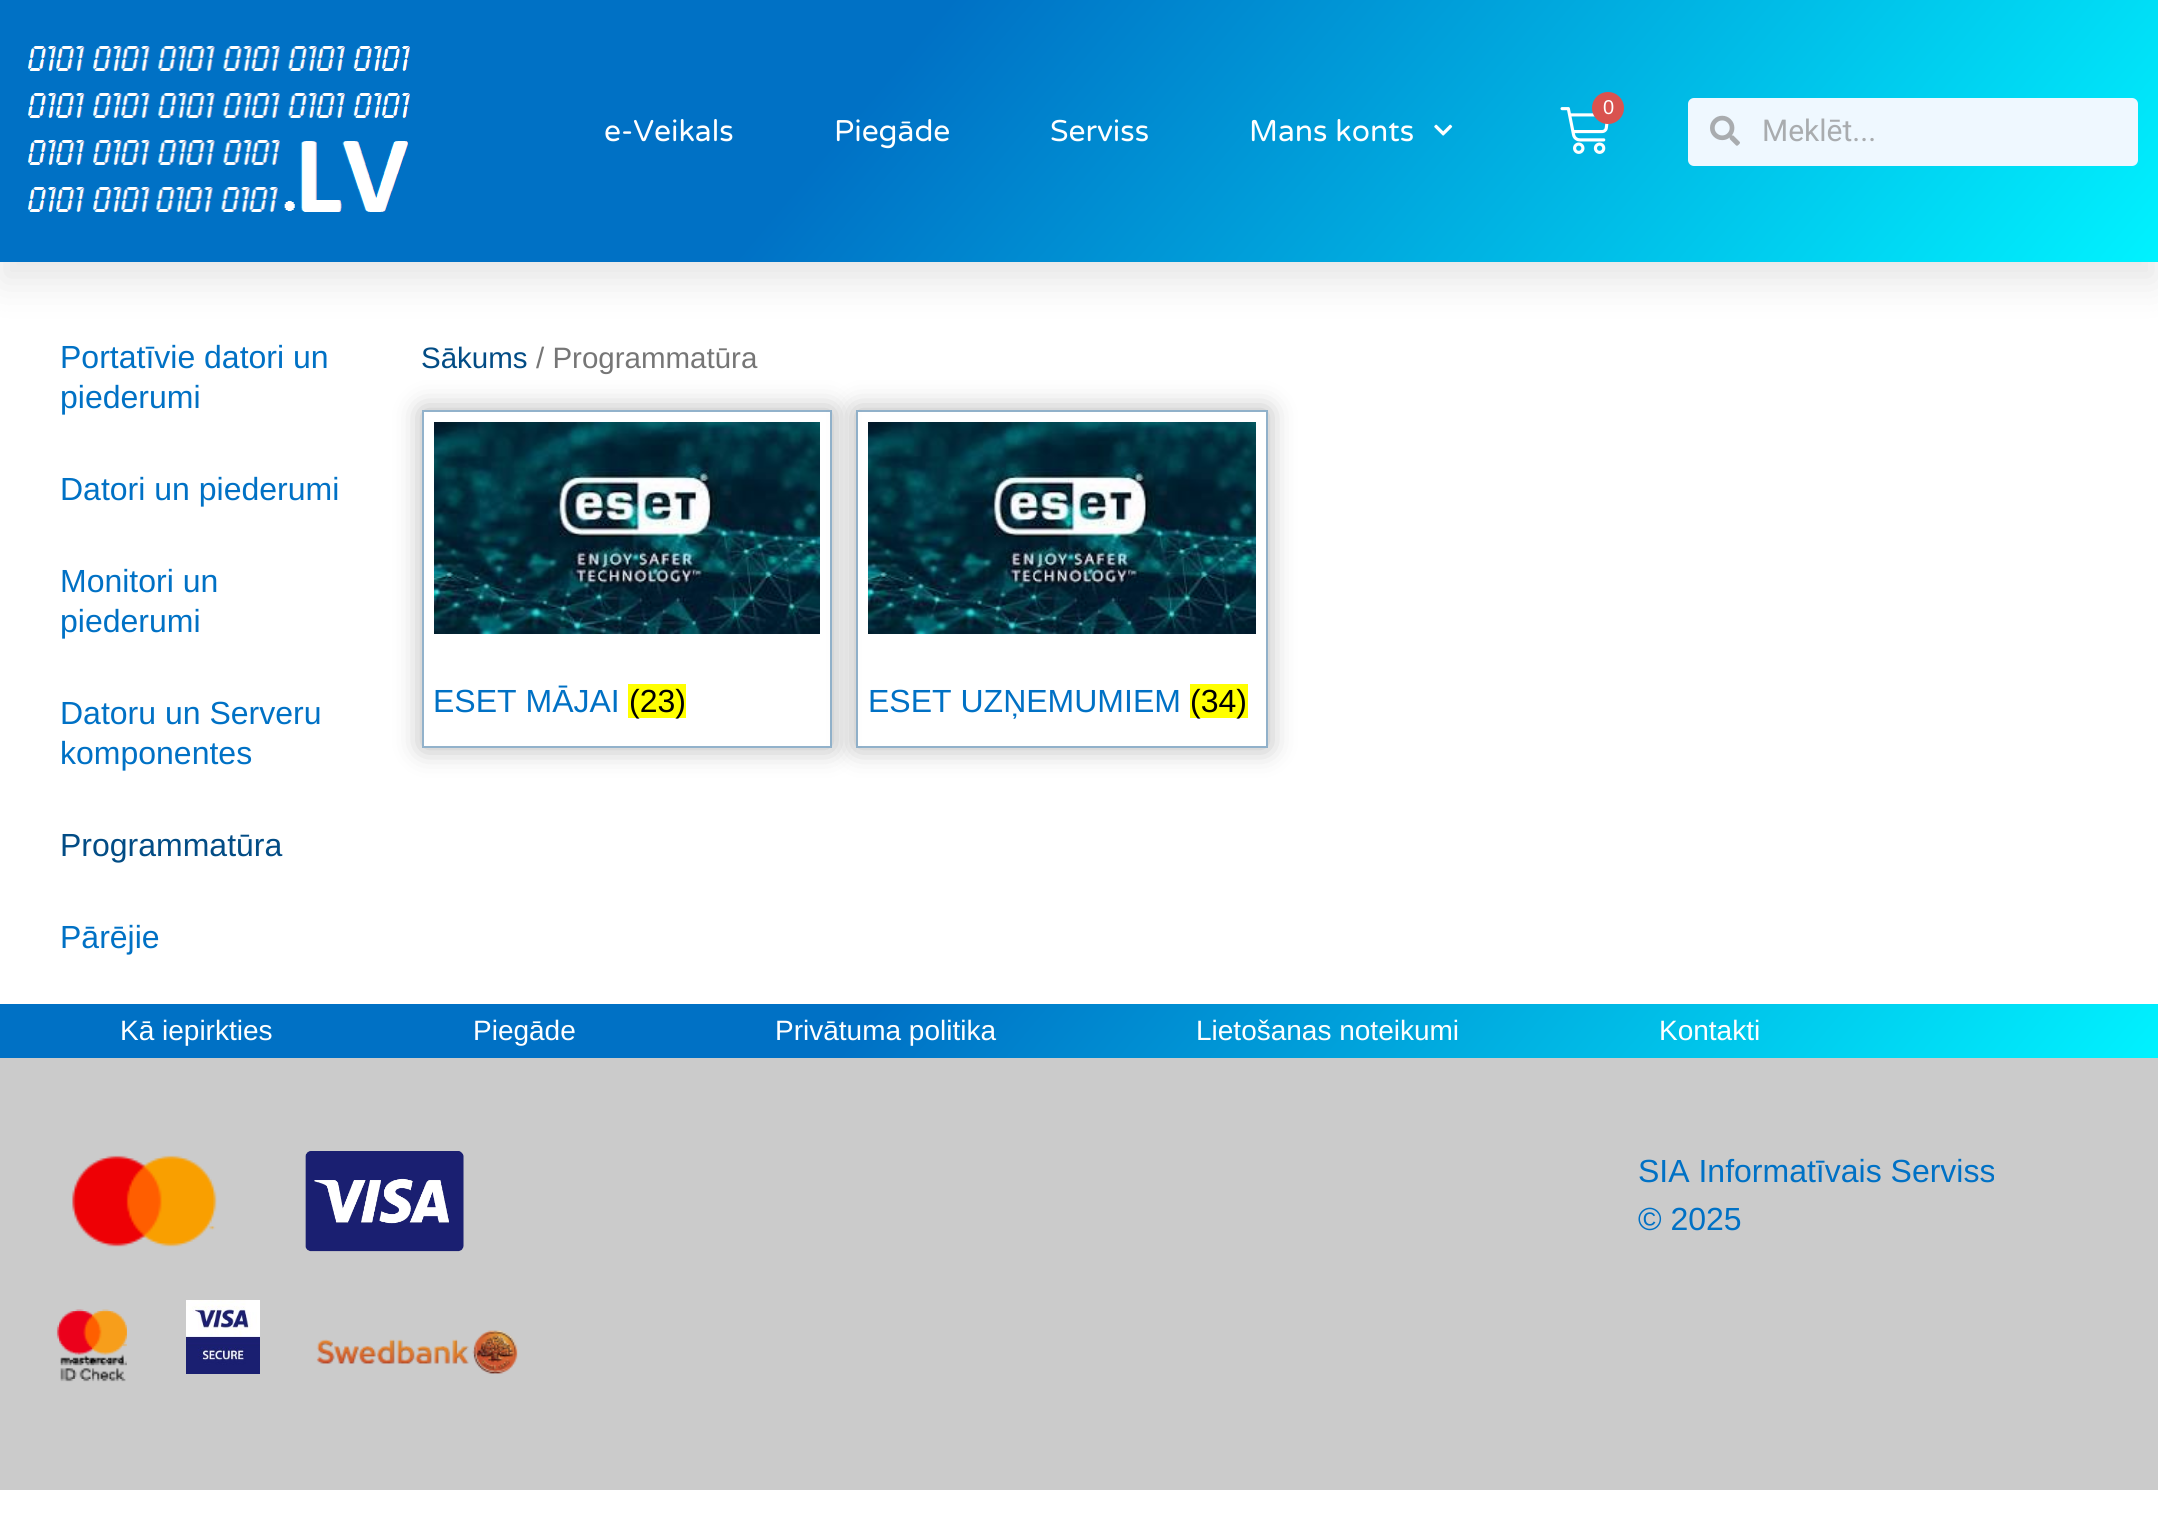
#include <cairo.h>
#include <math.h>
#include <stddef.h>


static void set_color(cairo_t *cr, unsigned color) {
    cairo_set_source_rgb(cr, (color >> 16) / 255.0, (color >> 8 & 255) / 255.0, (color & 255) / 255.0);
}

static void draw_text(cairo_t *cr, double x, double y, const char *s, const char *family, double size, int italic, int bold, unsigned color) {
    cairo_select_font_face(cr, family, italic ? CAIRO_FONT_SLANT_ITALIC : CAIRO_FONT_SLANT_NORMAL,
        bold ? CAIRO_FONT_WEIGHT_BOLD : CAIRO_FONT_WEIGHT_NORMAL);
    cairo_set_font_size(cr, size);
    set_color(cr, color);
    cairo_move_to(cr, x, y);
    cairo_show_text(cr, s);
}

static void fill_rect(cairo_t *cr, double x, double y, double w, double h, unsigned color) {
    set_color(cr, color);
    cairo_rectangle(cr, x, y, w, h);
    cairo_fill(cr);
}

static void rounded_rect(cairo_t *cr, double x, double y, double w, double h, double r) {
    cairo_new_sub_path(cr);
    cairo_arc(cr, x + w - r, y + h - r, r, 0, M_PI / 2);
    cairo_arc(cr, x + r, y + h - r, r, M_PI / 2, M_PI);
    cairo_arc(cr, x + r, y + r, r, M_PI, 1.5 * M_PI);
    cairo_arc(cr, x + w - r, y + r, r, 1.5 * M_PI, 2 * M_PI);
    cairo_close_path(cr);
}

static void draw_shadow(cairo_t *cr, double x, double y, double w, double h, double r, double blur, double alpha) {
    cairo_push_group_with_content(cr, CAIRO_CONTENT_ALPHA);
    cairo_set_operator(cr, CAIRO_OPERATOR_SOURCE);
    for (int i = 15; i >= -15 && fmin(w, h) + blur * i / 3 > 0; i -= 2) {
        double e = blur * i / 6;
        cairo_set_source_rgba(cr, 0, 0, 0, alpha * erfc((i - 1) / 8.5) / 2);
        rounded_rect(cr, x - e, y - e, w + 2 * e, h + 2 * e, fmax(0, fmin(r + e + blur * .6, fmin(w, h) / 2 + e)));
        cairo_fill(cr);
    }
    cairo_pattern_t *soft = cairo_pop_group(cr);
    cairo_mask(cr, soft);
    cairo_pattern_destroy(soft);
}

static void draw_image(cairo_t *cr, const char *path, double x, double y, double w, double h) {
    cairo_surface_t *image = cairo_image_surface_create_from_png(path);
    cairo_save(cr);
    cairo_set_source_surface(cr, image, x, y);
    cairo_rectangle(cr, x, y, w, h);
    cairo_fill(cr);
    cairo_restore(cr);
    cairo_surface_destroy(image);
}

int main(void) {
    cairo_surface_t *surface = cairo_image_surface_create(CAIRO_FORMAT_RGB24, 2158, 1514);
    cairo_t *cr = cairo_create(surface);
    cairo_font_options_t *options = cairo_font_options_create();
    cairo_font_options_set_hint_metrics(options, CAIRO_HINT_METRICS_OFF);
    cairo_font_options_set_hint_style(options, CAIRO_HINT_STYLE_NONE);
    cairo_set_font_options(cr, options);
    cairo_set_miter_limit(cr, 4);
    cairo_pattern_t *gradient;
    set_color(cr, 0xFFFFFF);
    cairo_paint(cr);
    set_color(cr, 0x000000);
    draw_shadow(cr, 0, 20, 2158, 262, 0, 20, 0.1);
    gradient = cairo_pattern_create_linear(381, -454, 1777, 716);
    cairo_pattern_add_color_stop_rgba(gradient, 0.4, 0, 0.443, 0.773, 1);
    cairo_pattern_add_color_stop_rgba(gradient, 1, 0, 0.949, 1, 1);
    cairo_set_source(cr, gradient);
    cairo_pattern_destroy(gradient);
    cairo_rectangle(cr, 0, 0, 2158, 262);
    cairo_fill(cr);
    draw_image(cr, "assets/img1.png", 27, 46, 383, 166);
    draw_image(cr, "assets/img2.png", 1560, 107, 49, 47);
    set_color(cr, 0xD9534F);
    cairo_arc(cr, 1608, 108, 16, 0, 2 * M_PI);
    cairo_fill(cr);
    draw_text(cr, 1603, 114, "0", "Liberation Sans", 20, 0, 0, 0xFFFFFF);
    draw_text(cr, 604, 141, "e-Veikals", "Varela Round", 30, 0, 0, 0xFFFFFF);
    draw_text(cr, 834, 141, "Piegāde", "Varela Round", 30, 0, 0, 0xFFFFFF);
    draw_text(cr, 1050, 141, "Serviss", "Varela Round", 30, 0, 0, 0xFFFFFF);
    draw_text(cr, 1249, 141, "Mans konts", "Varela Round", 30, 0, 0, 0xFFFFFF);
    draw_image(cr, "assets/img3.png", 1434, 124, 19, 12);
    set_color(cr, 0xEFF8FF);
    rounded_rect(cr, 1688, 98, 450, 68, 6);
    cairo_fill(cr);
    draw_image(cr, "assets/img4.png", 1710, 115, 30, 31);
    draw_text(cr, 1762, 141, "Meklēt...", "Roboto", 30, 0, 0, 0xA9ACAF);
    draw_text(cr, 60, 368, "Portatīvie datori un", "Liberation Sans", 32, 0, 0, 0x0071C5);
    draw_text(cr, 60, 408, "piederumi", "Liberation Sans", 32, 0, 0, 0x0071C5);
    draw_text(cr, 60, 500, "Datori un piederumi", "Liberation Sans", 32, 0, 0, 0x0071C5);
    draw_text(cr, 60, 592, "Monitori un", "Liberation Sans", 32, 0, 0, 0x0071C5);
    draw_text(cr, 60, 632, "piederumi", "Liberation Sans", 32, 0, 0, 0x0071C5);
    draw_text(cr, 60, 724, "Datoru un Serveru", "Liberation Sans", 32, 0, 0, 0x0071C5);
    draw_text(cr, 60, 764, "komponentes", "Liberation Sans", 32, 0, 0, 0x0071C5);
    draw_text(cr, 60, 856, "Programmatūra", "Liberation Sans", 32, 0, 0, 0x024C85);
    draw_text(cr, 60, 948, "Pārējie", "Liberation Sans", 32, 0, 0, 0x0071C5);
    draw_text(cr, 421, 368, "Sākums", "Liberation Sans", 29.5, 0, 0, 0x024C85);
    draw_text(cr, 536, 368, "/ Programmatūra", "Liberation Sans", 29.5, 0, 0, 0x767676);
    cairo_save(cr);
    cairo_set_fill_rule(cr, CAIRO_FILL_RULE_EVEN_ODD);
    cairo_new_path(cr);
    cairo_move_to(cr, 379, 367);
    cairo_line_to(cr, 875, 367);
    cairo_line_to(cr, 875, 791);
    cairo_line_to(cr, 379, 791);
    cairo_close_path(cr);
    cairo_move_to(cr, 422, 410);
    cairo_line_to(cr, 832, 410);
    cairo_line_to(cr, 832, 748);
    cairo_line_to(cr, 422, 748);
    cairo_close_path(cr);
    cairo_clip(cr);
    set_color(cr, 0x000000);
    draw_shadow(cr, 422, 410, 410, 338, 0, 14, 0.29);
    cairo_restore(cr);
    cairo_rectangle(cr, 423, 411, 408, 336);
    set_color(cr, 0x92B2CB);
    cairo_stroke(cr);
    draw_image(cr, "assets/img5.png", 434, 422, 386, 212);
    draw_text(cr, 433, 712, "ESET MĀJAI", "Liberation Sans", 32, 0, 0, 0x0071C5);
    fill_rect(cr, 628, 684, 58, 34, 0xFFFF00);
    draw_text(cr, 629, 712, "(23)", "Liberation Sans", 32, 0, 0, 0x000000);
    cairo_save(cr);
    cairo_set_fill_rule(cr, CAIRO_FILL_RULE_EVEN_ODD);
    cairo_new_path(cr);
    cairo_move_to(cr, 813, 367);
    cairo_line_to(cr, 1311, 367);
    cairo_line_to(cr, 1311, 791);
    cairo_line_to(cr, 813, 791);
    cairo_close_path(cr);
    cairo_move_to(cr, 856, 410);
    cairo_line_to(cr, 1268, 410);
    cairo_line_to(cr, 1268, 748);
    cairo_line_to(cr, 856, 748);
    cairo_close_path(cr);
    cairo_clip(cr);
    set_color(cr, 0x000000);
    draw_shadow(cr, 856, 410, 412, 338, 0, 14, 0.29);
    cairo_restore(cr);
    cairo_rectangle(cr, 857, 411, 410, 336);
    cairo_set_source_rgba(cr, 0.008, 0.298, 0.522, 0.43);
    cairo_stroke(cr);
    draw_image(cr, "assets/img6.png", 868, 422, 388, 212);
    draw_text(cr, 868, 712, "ESET UZŅEMUMIEM", "Liberation Sans", 32, 0, 0, 0x0071C5);
    fill_rect(cr, 1190, 684, 58, 34, 0xFFFF00);
    draw_text(cr, 1190, 712, "(34)", "Liberation Sans", 32, 0, 0, 0x000000);
    gradient = cairo_pattern_create_linear(433, 489, 1725, 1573);
    cairo_pattern_add_color_stop_rgba(gradient, 0.4, 0, 0.443, 0.773, 1);
    cairo_pattern_add_color_stop_rgba(gradient, 1, 0, 0.949, 1, 1);
    cairo_set_source(cr, gradient);
    cairo_pattern_destroy(gradient);
    cairo_rectangle(cr, 0, 1004, 2158, 54);
    cairo_fill(cr);
    draw_text(cr, 120, 1040, "Kā iepirkties", "Liberation Sans", 28, 0, 0, 0xFFFFFF);
    draw_text(cr, 473, 1040, "Piegāde", "Liberation Sans", 28, 0, 0, 0xFFFFFF);
    draw_text(cr, 775, 1040, "Privātuma politika", "Liberation Sans", 28, 0, 0, 0xFFFFFF);
    draw_text(cr, 1196, 1040, "Lietošanas noteikumi", "Liberation Sans", 28, 0, 0, 0xFFFFFF);
    draw_text(cr, 1659, 1040, "Kontakti", "Liberation Sans", 28, 0, 0, 0xFFFFFF);
    fill_rect(cr, 0, 1058, 2158, 432, 0xCBCBCB);
    draw_image(cr, "assets/img7.png", 72, 1155, 145, 92);
    draw_image(cr, "assets/img8.png", 305, 1151, 159, 101);
    draw_image(cr, "assets/img9.png", 56, 1309, 71, 73);
    draw_image(cr, "assets/img10.png", 186, 1300, 74, 74);
    draw_image(cr, "assets/img11.png", 316, 1330, 202, 44);
    draw_text(cr, 1638, 1182, "SIA Informatīvais Serviss", "Liberation Sans", 32, 0, 0, 0x0071C5);
    draw_text(cr, 1638, 1230, "© 2025", "Liberation Sans", 32, 0, 0, 0x0071C5);
    cairo_surface_write_to_png(surface, "output.png");
    cairo_font_options_destroy(options);
    cairo_destroy(cr);
    cairo_surface_destroy(surface);
    return 0;
}
